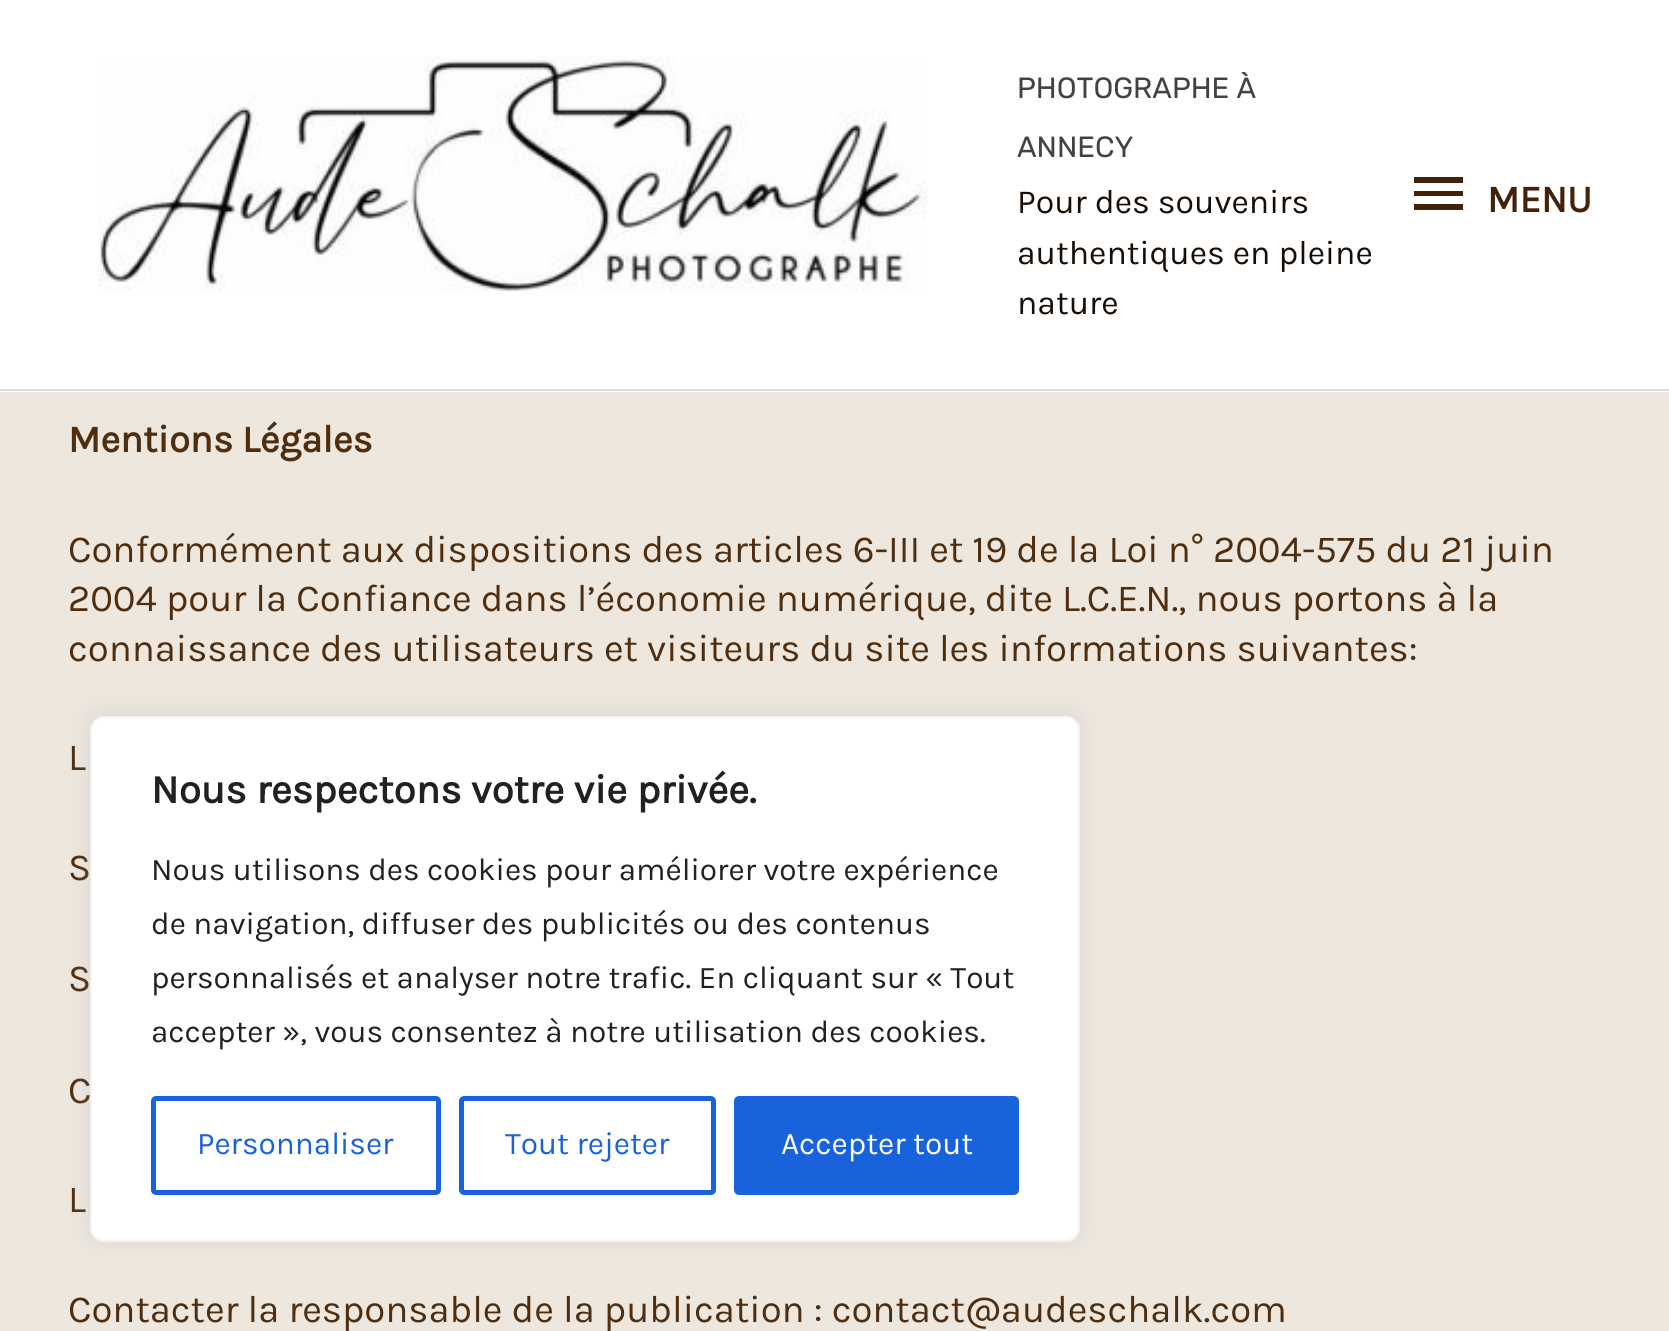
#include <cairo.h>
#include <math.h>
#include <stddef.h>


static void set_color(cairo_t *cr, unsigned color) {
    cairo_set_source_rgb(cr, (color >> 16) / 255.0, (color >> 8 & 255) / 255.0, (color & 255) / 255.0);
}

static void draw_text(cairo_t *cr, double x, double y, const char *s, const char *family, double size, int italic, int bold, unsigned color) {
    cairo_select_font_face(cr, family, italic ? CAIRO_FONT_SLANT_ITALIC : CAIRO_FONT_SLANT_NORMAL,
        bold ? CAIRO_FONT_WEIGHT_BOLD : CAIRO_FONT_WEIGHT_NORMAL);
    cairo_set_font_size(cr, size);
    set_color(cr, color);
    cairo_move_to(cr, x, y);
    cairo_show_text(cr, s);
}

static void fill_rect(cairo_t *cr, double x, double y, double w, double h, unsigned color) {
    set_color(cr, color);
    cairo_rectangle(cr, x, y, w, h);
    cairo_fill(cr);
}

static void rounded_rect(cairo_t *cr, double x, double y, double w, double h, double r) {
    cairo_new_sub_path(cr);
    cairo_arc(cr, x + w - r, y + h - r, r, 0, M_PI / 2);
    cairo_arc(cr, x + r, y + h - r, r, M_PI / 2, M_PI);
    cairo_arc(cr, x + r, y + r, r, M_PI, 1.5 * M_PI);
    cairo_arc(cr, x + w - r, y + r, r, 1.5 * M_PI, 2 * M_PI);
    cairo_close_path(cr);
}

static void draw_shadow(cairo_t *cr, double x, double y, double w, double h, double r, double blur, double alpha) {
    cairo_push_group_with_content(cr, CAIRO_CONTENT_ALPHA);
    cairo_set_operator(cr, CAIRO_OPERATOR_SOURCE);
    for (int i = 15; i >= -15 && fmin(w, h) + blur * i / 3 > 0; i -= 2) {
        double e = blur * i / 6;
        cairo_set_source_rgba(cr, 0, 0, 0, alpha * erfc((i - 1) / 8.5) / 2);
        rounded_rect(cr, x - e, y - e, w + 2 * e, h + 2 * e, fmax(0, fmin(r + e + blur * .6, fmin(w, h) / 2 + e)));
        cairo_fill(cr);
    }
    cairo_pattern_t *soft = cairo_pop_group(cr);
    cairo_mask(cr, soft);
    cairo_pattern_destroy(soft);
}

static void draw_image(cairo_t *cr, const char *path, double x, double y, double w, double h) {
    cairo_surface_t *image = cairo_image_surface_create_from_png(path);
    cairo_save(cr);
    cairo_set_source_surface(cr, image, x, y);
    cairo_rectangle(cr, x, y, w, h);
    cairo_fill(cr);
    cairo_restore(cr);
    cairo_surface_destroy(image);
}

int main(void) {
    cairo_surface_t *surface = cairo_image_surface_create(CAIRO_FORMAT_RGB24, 1669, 1331);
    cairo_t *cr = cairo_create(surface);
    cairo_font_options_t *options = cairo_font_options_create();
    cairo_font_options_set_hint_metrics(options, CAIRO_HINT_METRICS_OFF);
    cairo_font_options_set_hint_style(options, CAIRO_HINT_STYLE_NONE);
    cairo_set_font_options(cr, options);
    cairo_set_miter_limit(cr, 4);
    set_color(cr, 0xEDE7DE);
    cairo_paint(cr);
    fill_rect(cr, 0, 0, 1669, 392, 0xFFFFFF);
    fill_rect(cr, 0, 389, 1669, 2, 0xDDDDDD);
    draw_image(cr, "assets/img1.png", 98, 56, 830, 235);
    draw_text(cr, 1017, 98, "PHOTOGRAPHE À", "Rubik", 29.25, 0, 0, 0x424242);
    draw_text(cr, 1017, 157, "ANNECY", "Rubik", 29.25, 0, 0, 0x424242);
    draw_text(cr, 1017, 213, "Pour des souvenirs", "Karla", 33.75, 0, 0, 0x180E06);
    draw_text(cr, 1017, 264, "authentiques en pleine", "Karla", 33.75, 0, 0, 0x180E06);
    draw_text(cr, 1017, 314, "nature", "Karla", 33.75, 0, 0, 0x180E06);
    set_color(cr, 0x432209);
    cairo_new_path(cr);
    cairo_move_to(cr, 1414, 177);
    cairo_line_to(cr, 1463, 177);
    cairo_line_to(cr, 1463, 183);
    cairo_line_to(cr, 1414, 183);
    cairo_close_path(cr);
    cairo_move_to(cr, 1414, 196);
    cairo_line_to(cr, 1414, 191);
    cairo_line_to(cr, 1463, 191);
    cairo_line_to(cr, 1463, 196);
    cairo_close_path(cr);
    cairo_move_to(cr, 1414, 210);
    cairo_line_to(cr, 1414, 204);
    cairo_line_to(cr, 1463, 204);
    cairo_line_to(cr, 1463, 210);
    cairo_close_path(cr);
    cairo_fill(cr);
    draw_text(cr, 1487, 212, "MENU", "Karla", 38.25, 0, 1, 0x432209);
    draw_text(cr, 68, 452, "Mentions Légales", "Karla", 38.25, 0, 1, 0x4F2E0F);
    draw_text(cr, 68, 562, "Conformément aux dispositions des articles 6-III et 19 de la Loi n° 2004-575 du 21 juin", "Karla", 38.25, 0, 0, 0x4F2E0F);
    draw_text(cr, 68, 611, "2004 pour la Confiance dans l’économie numérique, dite L.C.E.N., nous portons à la", "Karla", 38.25, 0, 0, 0x4F2E0F);
    draw_text(cr, 68, 661, "connaissance des utilisateurs et visiteurs du site les informations suivantes:", "Karla", 38.25, 0, 0, 0x4F2E0F);
    draw_text(cr, 68, 770, "L", "Karla", 38.25, 0, 0, 0x4F2E0F);
    draw_text(cr, 68, 880, "S", "Karla", 38.25, 0, 0, 0x4F2E0F);
    draw_text(cr, 68, 991, "S", "Karla", 38.25, 0, 0, 0x4F2E0F);
    draw_text(cr, 68, 1103, "C", "Karla", 38.25, 0, 0, 0x4F2E0F);
    draw_text(cr, 68, 1212, "L", "Karla", 38.25, 0, 0, 0x4F2E0F);
    draw_text(cr, 68, 1322, "Contacter la responsable de la publication : contact@audeschalk.com", "Karla", 38.25, 0, 0, 0x4F2E0F);
    set_color(cr, 0xACABAB);
    draw_shadow(cr, 90, 713, 990, 527, 14, 11, 0.3);
    set_color(cr, 0xFFFFFF);
    rounded_rect(cr, 91, 717, 988, 524, 13);
    cairo_fill_preserve(cr);
    set_color(cr, 0xF4F4F4);
    cairo_stroke(cr);
    draw_text(cr, 151, 803, "Nous respectons votre vie privée.", "Karla", 40.5, 0, 1, 0x212121);
    draw_text(cr, 151, 880, "Nous utilisons des cookies pour améliorer votre expérience", "Karla", 31.5, 0, 0, 0x212121);
    draw_text(cr, 151, 934, "de navigation, diffuser des publicités ou des contenus", "Karla", 31.5, 0, 0, 0x212121);
    draw_text(cr, 151, 988, "personnalisés et analyser notre trafic. En cliquant sur « Tout", "Karla", 31.5, 0, 0, 0x212121);
    draw_text(cr, 151, 1042, "accepter », vous consentez à notre utilisation des cookies.", "Karla", 31.5, 0, 0, 0x212121);
    rounded_rect(cr, 153.5, 1098.5, 285, 94, 2.5);
    set_color(cr, 0x1863DC);
    cairo_set_line_width(cr, 5);
    cairo_stroke(cr);
    draw_text(cr, 197, 1154, "Personnaliser", "Karla", 31.5, 0, 0, 0x1863DC);
    rounded_rect(cr, 461.5, 1098.5, 252, 94, 2.5);
    cairo_stroke(cr);
    draw_text(cr, 505, 1154, "Tout rejeter", "Karla", 31.5, 0, 0, 0x1863DC);
    rounded_rect(cr, 736.5, 1098.5, 280, 94, 2.5);
    cairo_fill_preserve(cr);
    cairo_stroke(cr);
    draw_text(cr, 781, 1154, "Accepter tout", "Karla", 31.5, 0, 0, 0xFFFFFF);
    cairo_surface_write_to_png(surface, "output.png");
    cairo_font_options_destroy(options);
    cairo_destroy(cr);
    cairo_surface_destroy(surface);
    return 0;
}
